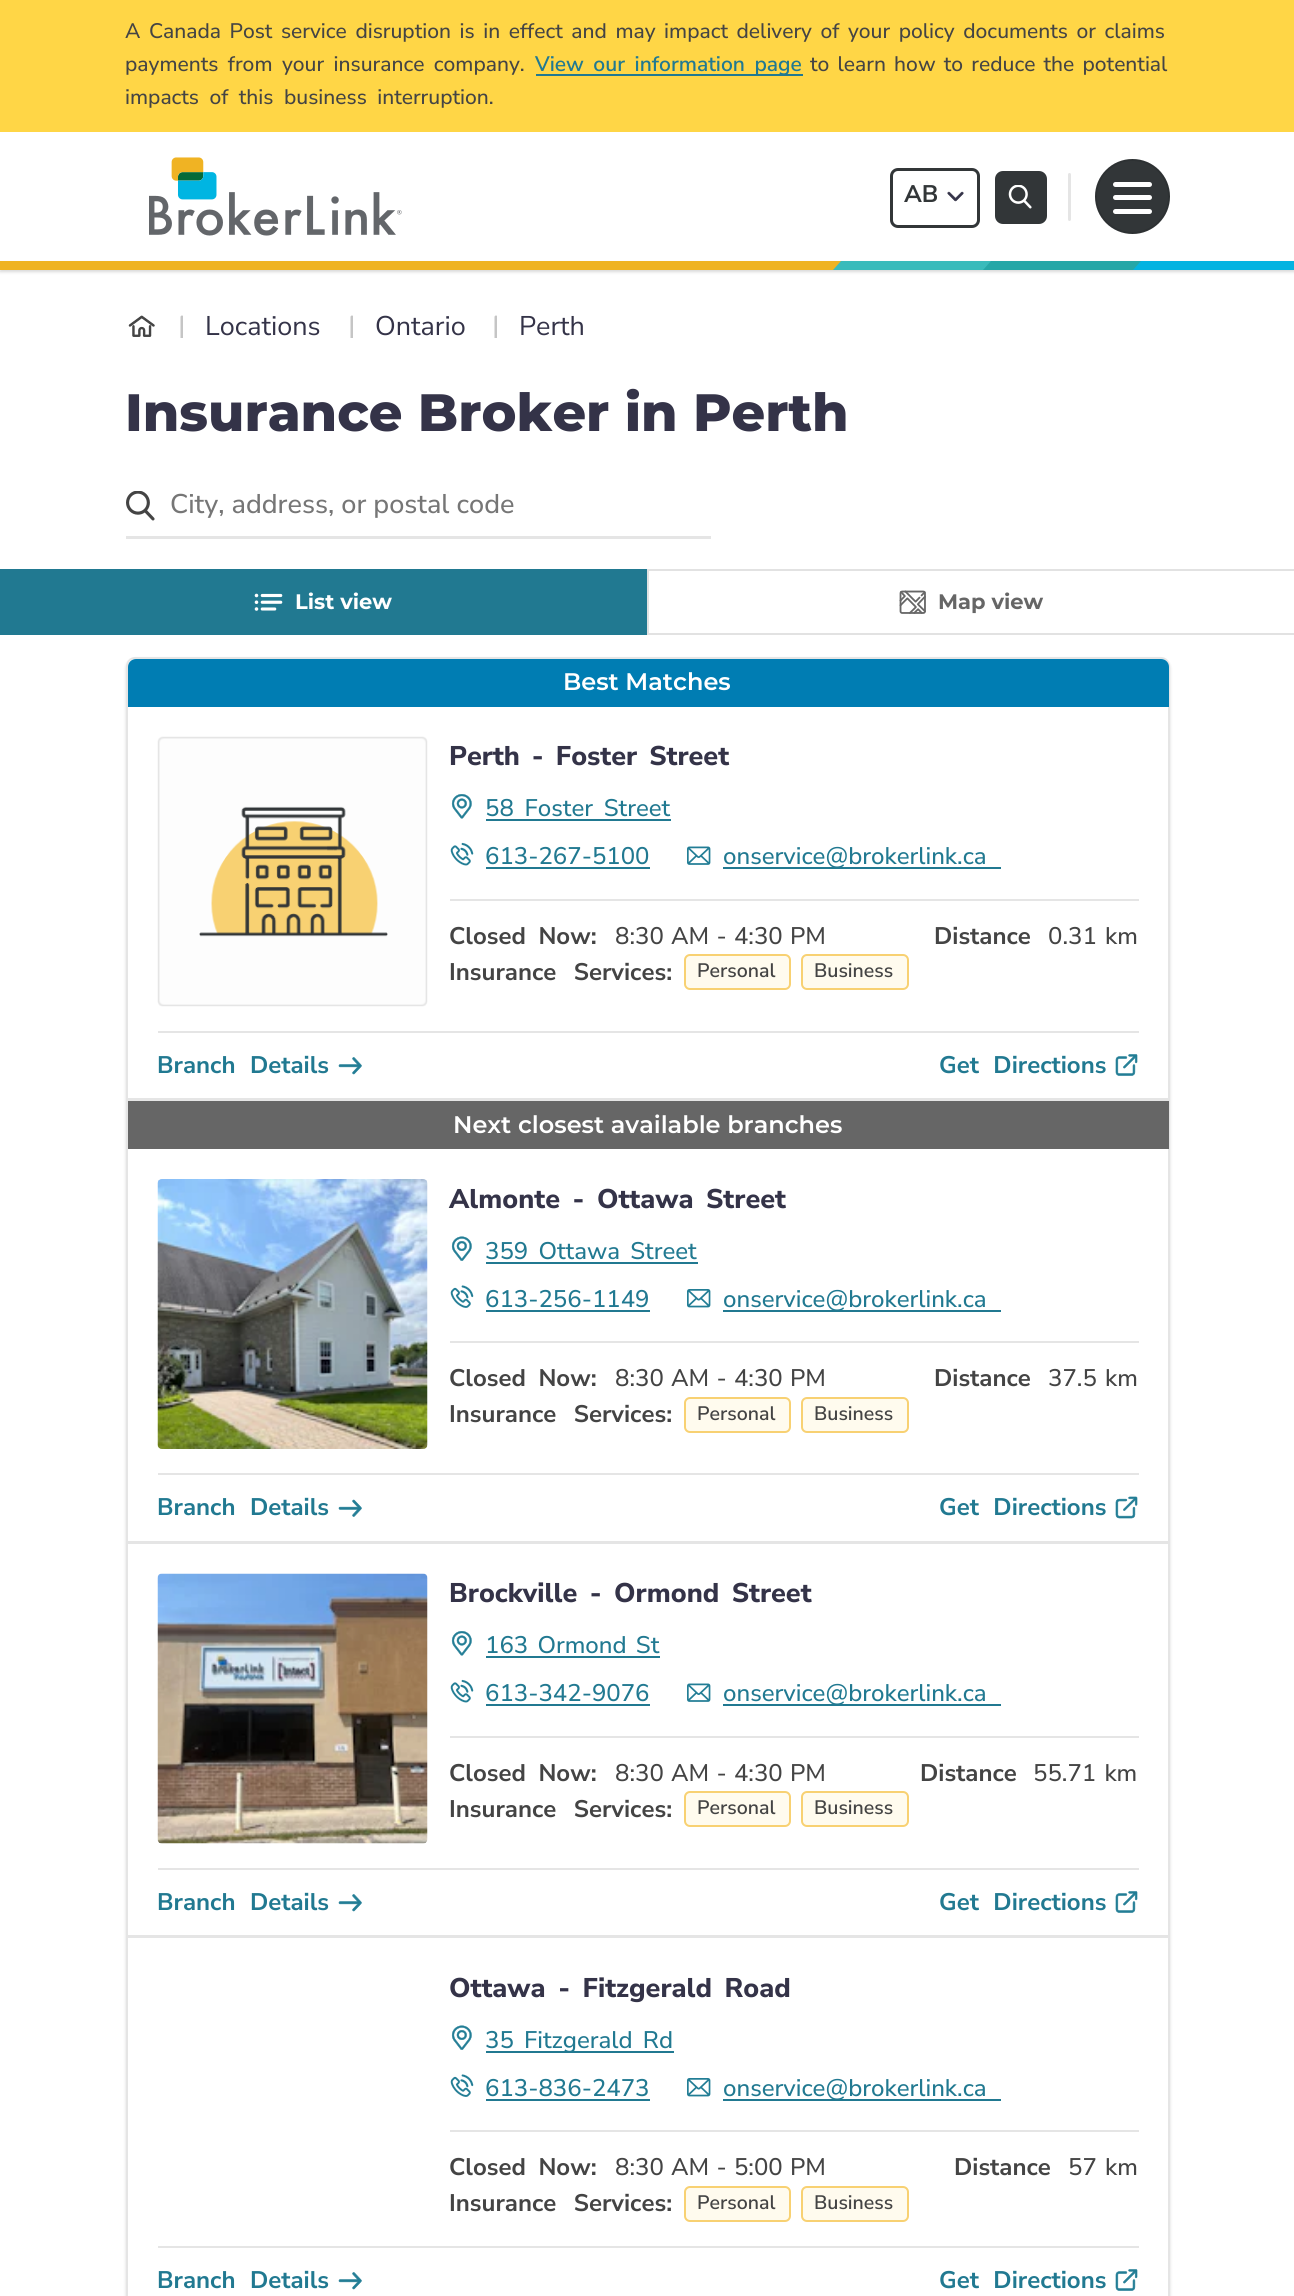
#include <cairo.h>
#include <math.h>
#include <stddef.h>


static void set_color(cairo_t *cr, unsigned color) {
    cairo_set_source_rgb(cr, (color >> 16) / 255.0, (color >> 8 & 255) / 255.0, (color & 255) / 255.0);
}

static void draw_text(cairo_t *cr, double x, double y, const char *s, const char *family, double size, int italic, int bold, unsigned color) {
    cairo_select_font_face(cr, family, italic ? CAIRO_FONT_SLANT_ITALIC : CAIRO_FONT_SLANT_NORMAL,
        bold ? CAIRO_FONT_WEIGHT_BOLD : CAIRO_FONT_WEIGHT_NORMAL);
    cairo_set_font_size(cr, size);
    set_color(cr, color);
    cairo_move_to(cr, x, y);
    cairo_show_text(cr, s);
}

static void draw_spaced(cairo_t *cr, double x, double y, const char *s, double letter, double word) {
    cairo_move_to(cr, x, y);
    while (*s) {
        char ch[5] = {0};
        int n = 0;
        do ch[n++] = *s++; while ((*s & 0xC0) == 0x80);
        cairo_show_text(cr, ch);
        cairo_rel_move_to(cr, letter + word * (*ch == ' '), 0);
    }
}

static void fill_rect(cairo_t *cr, double x, double y, double w, double h, unsigned color) {
    set_color(cr, color);
    cairo_rectangle(cr, x, y, w, h);
    cairo_fill(cr);
}

static void rounded_rect(cairo_t *cr, double x, double y, double w, double h, double r) {
    cairo_new_sub_path(cr);
    cairo_arc(cr, x + w - r, y + h - r, r, 0, M_PI / 2);
    cairo_arc(cr, x + r, y + h - r, r, M_PI / 2, M_PI);
    cairo_arc(cr, x + r, y + r, r, M_PI, 1.5 * M_PI);
    cairo_arc(cr, x + w - r, y + r, r, 1.5 * M_PI, 2 * M_PI);
    cairo_close_path(cr);
}

static void draw_shadow(cairo_t *cr, double x, double y, double w, double h, double r, double blur, double alpha) {
    cairo_push_group_with_content(cr, CAIRO_CONTENT_ALPHA);
    cairo_set_operator(cr, CAIRO_OPERATOR_SOURCE);
    for (int i = 15; i >= -15 && fmin(w, h) + blur * i / 3 > 0; i -= 2) {
        double e = blur * i / 6;
        cairo_set_source_rgba(cr, 0, 0, 0, alpha * erfc((i - 1) / 8.5) / 2);
        rounded_rect(cr, x - e, y - e, w + 2 * e, h + 2 * e, fmax(0, fmin(r + e + blur * .6, fmin(w, h) / 2 + e)));
        cairo_fill(cr);
    }
    cairo_pattern_t *soft = cairo_pop_group(cr);
    cairo_mask(cr, soft);
    cairo_pattern_destroy(soft);
}

static void draw_image(cairo_t *cr, const char *path, double x, double y, double w, double h) {
    cairo_surface_t *image = cairo_image_surface_create_from_png(path);
    cairo_save(cr);
    cairo_set_source_surface(cr, image, x, y);
    cairo_rectangle(cr, x, y, w, h);
    cairo_fill(cr);
    cairo_restore(cr);
    cairo_surface_destroy(image);
}

int main(void) {
    cairo_surface_t *surface = cairo_image_surface_create(CAIRO_FORMAT_RGB24, 1294, 2296);
    cairo_t *cr = cairo_create(surface);
    cairo_font_options_t *options = cairo_font_options_create();
    cairo_font_options_set_hint_metrics(options, CAIRO_HINT_METRICS_OFF);
    cairo_font_options_set_hint_style(options, CAIRO_HINT_STYLE_NONE);
    cairo_set_font_options(cr, options);
    cairo_set_miter_limit(cr, 4);
    set_color(cr, 0xFFFFFF);
    cairo_paint(cr);
    fill_rect(cr, 0, 0, 1294, 132, 0xFFD646);
    cairo_select_font_face(cr, "Nunito Sans Medium", CAIRO_FONT_SLANT_NORMAL, CAIRO_FONT_WEIGHT_NORMAL);
    cairo_set_font_size(cr, 21);
    set_color(cr, 0x444444);
    draw_spaced(cr, 125, 38, "A Canada Post service disruption is in effect and may impact delivery of your policy documents or claims", 0, 3.1);
    draw_spaced(cr, 125, 71, "payments from your insurance company.", 0, 4);
    fill_rect(cr, 536, 74, 267, 2, 0x217991);
    cairo_select_font_face(cr, "Nunito Sans SemiBold", CAIRO_FONT_SLANT_NORMAL, CAIRO_FONT_WEIGHT_NORMAL);
    draw_spaced(cr, 535, 71, "View our information page", 0, 4);
    cairo_select_font_face(cr, "Nunito Sans Medium", CAIRO_FONT_SLANT_NORMAL, CAIRO_FONT_WEIGHT_NORMAL);
    set_color(cr, 0x444444);
    draw_spaced(cr, 810, 71, "to learn how to reduce the potential", 0, 2.75);
    draw_spaced(cr, 125, 104, "impacts of this business interruption.", 0, 5);
    draw_image(cr, "assets/img1.png", 149, 157, 253, 79);
    rounded_rect(cr, 891.5, 169.5, 87, 57, 6.5);
    set_color(cr, 0x323638);
    cairo_set_line_width(cr, 3);
    cairo_stroke(cr);
    draw_text(cr, 904, 202, "AB", "Nunito Sans", 24, 0, 1, 0x323638);
    draw_image(cr, "assets/img2.png", 947, 191, 17, 11);
    rounded_rect(cr, 996.5, 172.5, 49, 50, 6.5);
    cairo_fill_preserve(cr);
    cairo_stroke(cr);
    draw_image(cr, "assets/img3.png", 1008, 185, 24, 24);
    set_color(cr, 0xE5E5E5);
    rounded_rect(cr, 1068, 173, 3, 48, 1.5);
    cairo_fill(cr);
    set_color(cr, 0x323638);
    cairo_arc(cr, 1132.5, 196.5, 37.5, 0, 2 * M_PI);
    cairo_fill(cr);
    cairo_arc(cr, 1132.5, 196.5, 36.5, 0, 2 * M_PI);
    cairo_set_source_rgba(cr, 0, 0, 0, 0.1);
    cairo_set_line_width(cr, 2);
    cairo_stroke(cr);
    set_color(cr, 0xFFFFFF);
    rounded_rect(cr, 1113, 182, 39, 5, 2.5);
    cairo_fill(cr);
    rounded_rect(cr, 1113, 195, 39, 5, 2.5);
    cairo_fill(cr);
    rounded_rect(cr, 1113, 209, 39, 5, 2.5);
    cairo_fill(cr);
    set_color(cr, 0x000000);
    draw_shadow(cr, 0, 263, 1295, 9, 0, 1.5, 0.15);
    fill_rect(cr, 0, 261, 841, 9, 0xEFB321);
    fill_rect(cr, 851, 261, 140, 9, 0x39BBBB);
    cairo_new_path(cr);
    cairo_move_to(cr, 841, 261);
    cairo_line_to(cr, 859, 261);
    cairo_line_to(cr, 851, 270);
    cairo_line_to(cr, 833, 270);
    cairo_close_path(cr);
    cairo_fill(cr);
    fill_rect(cr, 1001, 261, 140, 9, 0x25A7A7);
    cairo_new_path(cr);
    cairo_move_to(cr, 991, 261);
    cairo_line_to(cr, 1009, 261);
    cairo_line_to(cr, 1001, 270);
    cairo_line_to(cr, 983, 270);
    cairo_close_path(cr);
    cairo_fill(cr);
    fill_rect(cr, 1151, 261, 143, 9, 0x03B3E1);
    cairo_new_path(cr);
    cairo_move_to(cr, 1141, 261);
    cairo_line_to(cr, 1159, 261);
    cairo_line_to(cr, 1151, 270);
    cairo_line_to(cr, 1133, 270);
    cairo_close_path(cr);
    cairo_fill(cr);
    draw_image(cr, "assets/img4.png", 128, 315, 27, 22);
    cairo_save(cr);
    cairo_rectangle(cr, 180, 315, 3, 23);
    cairo_clip(cr);
    cairo_new_path(cr);
    cairo_move_to(cr, 182, 317);
    cairo_line_to(cr, 182, 339);
    set_color(cr, 0xC5C5C5);
    cairo_set_line_width(cr, 3);
    cairo_set_line_cap(cr, CAIRO_LINE_CAP_ROUND);
    cairo_stroke(cr);
    cairo_restore(cr);
    draw_text(cr, 205, 335, "Locations", "Nunito Sans", 27, 0, 0, 0x343348);
    cairo_save(cr);
    cairo_rectangle(cr, 350, 315, 3, 23);
    cairo_clip(cr);
    cairo_new_path(cr);
    cairo_move_to(cr, 352, 317);
    cairo_line_to(cr, 352, 339);
    set_color(cr, 0xC5C5C5);
    cairo_set_line_width(cr, 3);
    cairo_set_line_cap(cr, CAIRO_LINE_CAP_ROUND);
    cairo_stroke(cr);
    cairo_restore(cr);
    draw_text(cr, 375, 335, "Ontario", "Nunito Sans", 27, 0, 0, 0x343348);
    cairo_save(cr);
    cairo_rectangle(cr, 494, 315, 3, 23);
    cairo_clip(cr);
    cairo_new_path(cr);
    cairo_move_to(cr, 496, 317);
    cairo_line_to(cr, 496, 339);
    set_color(cr, 0xC5C5C5);
    cairo_set_line_width(cr, 3);
    cairo_set_line_cap(cr, CAIRO_LINE_CAP_ROUND);
    cairo_stroke(cr);
    cairo_restore(cr);
    draw_text(cr, 519, 335, "Perth", "Nunito Sans", 27, 0, 0, 0x343348);
    draw_text(cr, 125, 431, "Insurance Broker in Perth", "Montserrat ExtraBold", 52.5, 0, 0, 0x343348);
    draw_image(cr, "assets/img5.png", 126, 491, 29, 30);
    fill_rect(cr, 126, 536, 585, 3, 0xE5E5E5);
    draw_text(cr, 170, 513, "City, address, or postal code", "Nunito Sans Medium", 27, 0, 0, 0x767676);
    fill_rect(cr, 647, 569, 647, 2, 0xE2E2E2);
    fill_rect(cr, 647, 633, 647, 2, 0xE2E2E2);
    fill_rect(cr, 647, 570, 2, 63, 0xE2E2E2);
    fill_rect(cr, 0, 569, 647, 66, 0x217991);
    draw_image(cr, "assets/img6.png", 254, 593, 29, 18);
    draw_text(cr, 295, 609, "List view", "Montserrat", 21, 0, 1, 0xFFFFFF);
    draw_image(cr, "assets/img7.png", 899, 590, 27, 24);
    draw_text(cr, 938, 609, "Map view", "Montserrat", 21, 0, 1, 0x666666);
    cairo_save(cr);
    cairo_set_fill_rule(cr, CAIRO_FILL_RULE_EVEN_ODD);
    cairo_new_path(cr);
    cairo_move_to(cr, 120, 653);
    cairo_line_to(cr, 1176, 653);
    cairo_line_to(cr, 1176, 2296);
    cairo_line_to(cr, 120, 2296);
    cairo_close_path(cr);
    cairo_move_to(cr, 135, 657);
    cairo_line_to(cr, 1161, 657);
    cairo_curve_to(cr, 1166, 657, 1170, 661, 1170, 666);
    cairo_line_to(cr, 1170, 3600);
    cairo_curve_to(cr, 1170, 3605, 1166, 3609, 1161, 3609);
    cairo_line_to(cr, 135, 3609);
    cairo_curve_to(cr, 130, 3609, 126, 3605, 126, 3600);
    cairo_line_to(cr, 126, 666);
    cairo_curve_to(cr, 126, 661, 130, 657, 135, 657);
    cairo_close_path(cr);
    cairo_clip(cr);
    set_color(cr, 0x000000);
    draw_shadow(cr, 126, 659, 1044, 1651, 9, 1.5, 0.15);
    cairo_restore(cr);
    rounded_rect(cr, 127, 658, 1042, 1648, 8);
    set_color(cr, 0xE5E5E5);
    cairo_stroke(cr);
    set_color(cr, 0x007DB3);
    cairo_new_path(cr);
    cairo_move_to(cr, 136, 659);
    cairo_line_to(cr, 1161, 659);
    cairo_curve_to(cr, 1165.5, 659, 1169, 662.5, 1169, 667);
    cairo_line_to(cr, 1169, 707);
    cairo_line_to(cr, 128, 707);
    cairo_line_to(cr, 128, 667);
    cairo_curve_to(cr, 128, 662.5, 131.5, 659, 136, 659);
    cairo_close_path(cr);
    cairo_fill(cr);
    draw_text(cr, 563, 690, "Best Matches", "Montserrat SemiBold", 24, 0, 0, 0xFFFFFF);
    fill_rect(cr, 128, 1098, 1041, 3, 0xE5E5E5);
    fill_rect(cr, 158, 1031, 981, 2, 0xE5E5E5);
    draw_image(cr, "assets/img8.png", 157, 736, 271, 271);
    cairo_select_font_face(cr, "Nunito Sans ExtraBold", CAIRO_FONT_SLANT_NORMAL, CAIRO_FONT_WEIGHT_NORMAL);
    cairo_set_font_size(cr, 27);
    set_color(cr, 0x343348);
    draw_spaced(cr, 449, 765, "Perth - Foster Street", 0, 4.5);
    draw_image(cr, "assets/img9.png", 451, 794, 21, 25);
    cairo_select_font_face(cr, "Nunito Sans Medium", CAIRO_FONT_SLANT_NORMAL, CAIRO_FONT_WEIGHT_NORMAL);
    cairo_set_font_size(cr, 24);
    set_color(cr, 0x217991);
    draw_spaced(cr, 485, 816, "58 Foster Street", 0, 4.5);
    fill_rect(cr, 486, 819, 185, 2, 0x217991);
    draw_image(cr, "assets/img10.png", 450, 842, 24, 24);
    draw_text(cr, 485, 864, "613-267-5100", "Nunito Sans Medium", 24, 0, 0, 0x217991);
    fill_rect(cr, 486, 867, 164, 2, 0x217991);
    draw_image(cr, "assets/img11.png", 687, 846, 24, 19);
    fill_rect(cr, 723, 867, 278, 2, 0x217991);
    draw_text(cr, 723, 864, "onservice@brokerlink.ca", "Nunito Sans Medium", 24, 0, 0, 0x217991);
    fill_rect(cr, 450, 899, 689, 2, 0xE5E5E5);
    cairo_select_font_face(cr, "Nunito Sans", CAIRO_FONT_SLANT_NORMAL, CAIRO_FONT_WEIGHT_BOLD);
    set_color(cr, 0x444444);
    draw_spaced(cr, 449, 944, "Closed Now:", 0, 6);
    cairo_select_font_face(cr, "Nunito Sans Medium", CAIRO_FONT_SLANT_NORMAL, CAIRO_FONT_WEIGHT_NORMAL);
    draw_spaced(cr, 615, 944, "8:30 AM - 4:30 PM", 0, 1);
    draw_text(cr, 934, 944, "Distance", "Nunito Sans", 24, 0, 1, 0x444444);
    cairo_select_font_face(cr, "Nunito Sans Medium", CAIRO_FONT_SLANT_NORMAL, CAIRO_FONT_WEIGHT_NORMAL);
    draw_spaced(cr, 1048, 944, "0.31 km", 0, 2);
    cairo_select_font_face(cr, "Nunito Sans", CAIRO_FONT_SLANT_NORMAL, CAIRO_FONT_WEIGHT_BOLD);
    draw_spaced(cr, 449, 980, "Insurance Services:", 0, 11);
    set_color(cr, 0xFFFBEE);
    rounded_rect(cr, 685, 955, 105, 34, 5);
    cairo_fill_preserve(cr);
    set_color(cr, 0xF8D172);
    cairo_stroke(cr);
    draw_text(cr, 697, 977, "Personal", "Nunito Sans SemiBold", 19.5, 0, 0, 0x444444);
    set_color(cr, 0xFFFBEE);
    rounded_rect(cr, 802, 955, 106, 34, 5);
    cairo_fill_preserve(cr);
    set_color(cr, 0xF8D172);
    cairo_stroke(cr);
    draw_text(cr, 814, 977, "Business", "Nunito Sans SemiBold", 19.5, 0, 0, 0x444444);
    cairo_select_font_face(cr, "Nunito Sans", CAIRO_FONT_SLANT_NORMAL, CAIRO_FONT_WEIGHT_BOLD);
    cairo_set_font_size(cr, 24);
    set_color(cr, 0x217991);
    draw_spaced(cr, 157, 1073, "Branch Details", 0, 8);
    draw_image(cr, "assets/img12.png", 338, 1057, 24, 18);
    draw_spaced(cr, 939, 1073, "Get Directions", 0, 8);
    draw_image(cr, "assets/img13.png", 1115, 1054, 23, 22);
    fill_rect(cr, 128, 1101, 1041, 48, 0x666666);
    draw_text(cr, 453, 1133, "Next closest available branches", "Montserrat SemiBold", 24, 0, 0, 0xFFFFFF);
    fill_rect(cr, 128, 1541, 1041, 3, 0xE5E5E5);
    fill_rect(cr, 158, 1473, 981, 2, 0xE5E5E5);
    draw_image(cr, "assets/img14.png", 157, 1179, 271, 270);
    cairo_select_font_face(cr, "Nunito Sans ExtraBold", CAIRO_FONT_SLANT_NORMAL, CAIRO_FONT_WEIGHT_NORMAL);
    cairo_set_font_size(cr, 27);
    set_color(cr, 0x343348);
    draw_spaced(cr, 449, 1208, "Almonte - Ottawa Street", 0, 5);
    draw_image(cr, "assets/img15.png", 451, 1236, 21, 25);
    cairo_select_font_face(cr, "Nunito Sans Medium", CAIRO_FONT_SLANT_NORMAL, CAIRO_FONT_WEIGHT_NORMAL);
    cairo_set_font_size(cr, 24);
    set_color(cr, 0x217991);
    draw_spaced(cr, 485, 1259, "359 Ottawa Street", 0, 4);
    fill_rect(cr, 486, 1262, 212, 2, 0x217991);
    draw_image(cr, "assets/img16.png", 450, 1285, 24, 23);
    draw_text(cr, 485, 1307, "613-256-1149", "Nunito Sans Medium", 24, 0, 0, 0x217991);
    fill_rect(cr, 486, 1310, 164, 2, 0x217991);
    draw_image(cr, "assets/img17.png", 687, 1289, 24, 19);
    fill_rect(cr, 723, 1310, 278, 2, 0x217991);
    draw_text(cr, 723, 1307, "onservice@brokerlink.ca", "Nunito Sans Medium", 24, 0, 0, 0x217991);
    fill_rect(cr, 450, 1341, 689, 2, 0xE5E5E5);
    cairo_select_font_face(cr, "Nunito Sans", CAIRO_FONT_SLANT_NORMAL, CAIRO_FONT_WEIGHT_BOLD);
    set_color(cr, 0x444444);
    draw_spaced(cr, 449, 1386, "Closed Now:", 0, 6);
    cairo_select_font_face(cr, "Nunito Sans Medium", CAIRO_FONT_SLANT_NORMAL, CAIRO_FONT_WEIGHT_NORMAL);
    draw_spaced(cr, 615, 1386, "8:30 AM - 4:30 PM", 0, 1);
    draw_text(cr, 934, 1386, "Distance", "Nunito Sans", 24, 0, 1, 0x444444);
    cairo_select_font_face(cr, "Nunito Sans Medium", CAIRO_FONT_SLANT_NORMAL, CAIRO_FONT_WEIGHT_NORMAL);
    draw_spaced(cr, 1048, 1386, "37.5 km", 0, 2);
    cairo_select_font_face(cr, "Nunito Sans", CAIRO_FONT_SLANT_NORMAL, CAIRO_FONT_WEIGHT_BOLD);
    draw_spaced(cr, 449, 1422, "Insurance Services:", 0, 11);
    set_color(cr, 0xFFFBEE);
    rounded_rect(cr, 685, 1398, 105, 34, 5);
    cairo_fill_preserve(cr);
    set_color(cr, 0xF8D172);
    cairo_stroke(cr);
    draw_text(cr, 697, 1420, "Personal", "Nunito Sans SemiBold", 19.5, 0, 0, 0x444444);
    set_color(cr, 0xFFFBEE);
    rounded_rect(cr, 802, 1398, 106, 34, 5);
    cairo_fill_preserve(cr);
    set_color(cr, 0xF8D172);
    cairo_stroke(cr);
    draw_text(cr, 814, 1420, "Business", "Nunito Sans SemiBold", 19.5, 0, 0, 0x444444);
    cairo_select_font_face(cr, "Nunito Sans", CAIRO_FONT_SLANT_NORMAL, CAIRO_FONT_WEIGHT_BOLD);
    cairo_set_font_size(cr, 24);
    set_color(cr, 0x217991);
    draw_spaced(cr, 157, 1515, "Branch Details", 0, 8);
    draw_image(cr, "assets/img18.png", 338, 1499, 24, 18);
    draw_spaced(cr, 939, 1515, "Get Directions", 0, 8);
    draw_image(cr, "assets/img19.png", 1115, 1496, 23, 23);
    fill_rect(cr, 128, 1935, 1041, 3, 0xE5E5E5);
    fill_rect(cr, 158, 1868, 981, 2, 0xE5E5E5);
    draw_image(cr, "assets/img20.png", 157, 1573, 271, 271);
    cairo_select_font_face(cr, "Nunito Sans ExtraBold", CAIRO_FONT_SLANT_NORMAL, CAIRO_FONT_WEIGHT_NORMAL);
    cairo_set_font_size(cr, 27);
    set_color(cr, 0x343348);
    draw_spaced(cr, 449, 1602, "Brockville - Ormond Street", 0, 5);
    draw_image(cr, "assets/img9.png", 451, 1631, 21, 25);
    cairo_select_font_face(cr, "Nunito Sans Medium", CAIRO_FONT_SLANT_NORMAL, CAIRO_FONT_WEIGHT_NORMAL);
    cairo_set_font_size(cr, 24);
    set_color(cr, 0x217991);
    draw_spaced(cr, 485, 1653, "163 Ormond St", 0, 3);
    fill_rect(cr, 486, 1656, 174, 2, 0x217991);
    draw_image(cr, "assets/img10.png", 450, 1679, 24, 24);
    draw_text(cr, 485, 1701, "613-342-9076", "Nunito Sans Medium", 24, 0, 0, 0x217991);
    fill_rect(cr, 486, 1704, 164, 2, 0x217991);
    draw_image(cr, "assets/img11.png", 687, 1683, 24, 19);
    fill_rect(cr, 723, 1704, 278, 2, 0x217991);
    draw_text(cr, 723, 1701, "onservice@brokerlink.ca", "Nunito Sans Medium", 24, 0, 0, 0x217991);
    fill_rect(cr, 450, 1736, 689, 2, 0xE5E5E5);
    cairo_select_font_face(cr, "Nunito Sans", CAIRO_FONT_SLANT_NORMAL, CAIRO_FONT_WEIGHT_BOLD);
    set_color(cr, 0x444444);
    draw_spaced(cr, 449, 1781, "Closed Now:", 0, 6);
    cairo_select_font_face(cr, "Nunito Sans Medium", CAIRO_FONT_SLANT_NORMAL, CAIRO_FONT_WEIGHT_NORMAL);
    draw_spaced(cr, 615, 1781, "8:30 AM - 4:30 PM", 0, 1);
    draw_text(cr, 920, 1781, "Distance", "Nunito Sans", 24, 0, 1, 0x444444);
    cairo_select_font_face(cr, "Nunito Sans Medium", CAIRO_FONT_SLANT_NORMAL, CAIRO_FONT_WEIGHT_NORMAL);
    draw_spaced(cr, 1033, 1781, "55.71 km", 0, 2);
    cairo_select_font_face(cr, "Nunito Sans", CAIRO_FONT_SLANT_NORMAL, CAIRO_FONT_WEIGHT_BOLD);
    draw_spaced(cr, 449, 1817, "Insurance Services:", 0, 11);
    set_color(cr, 0xFFFBEE);
    rounded_rect(cr, 685, 1792, 105, 34, 5);
    cairo_fill_preserve(cr);
    set_color(cr, 0xF8D172);
    cairo_stroke(cr);
    draw_text(cr, 697, 1814, "Personal", "Nunito Sans SemiBold", 19.5, 0, 0, 0x444444);
    set_color(cr, 0xFFFBEE);
    rounded_rect(cr, 802, 1792, 106, 34, 5);
    cairo_fill_preserve(cr);
    set_color(cr, 0xF8D172);
    cairo_stroke(cr);
    draw_text(cr, 814, 1814, "Business", "Nunito Sans SemiBold", 19.5, 0, 0, 0x444444);
    cairo_select_font_face(cr, "Nunito Sans", CAIRO_FONT_SLANT_NORMAL, CAIRO_FONT_WEIGHT_BOLD);
    cairo_set_font_size(cr, 24);
    set_color(cr, 0x217991);
    draw_spaced(cr, 157, 1910, "Branch Details", 0, 8);
    draw_image(cr, "assets/img12.png", 338, 1894, 24, 18);
    draw_spaced(cr, 939, 1910, "Get Directions", 0, 8);
    draw_image(cr, "assets/img13.png", 1115, 1891, 23, 22);
    fill_rect(cr, 158, 2246, 981, 2, 0xE5E5E5);
    cairo_select_font_face(cr, "Nunito Sans ExtraBold", CAIRO_FONT_SLANT_NORMAL, CAIRO_FONT_WEIGHT_NORMAL);
    cairo_set_font_size(cr, 27);
    set_color(cr, 0x343348);
    draw_spaced(cr, 449, 1997, "Ottawa - Fitzgerald Road", 0, 5);
    draw_image(cr, "assets/img15.png", 451, 2025, 21, 25);
    fill_rect(cr, 486, 2051, 188, 2, 0x217991);
    cairo_select_font_face(cr, "Nunito Sans Medium", CAIRO_FONT_SLANT_NORMAL, CAIRO_FONT_WEIGHT_NORMAL);
    cairo_set_font_size(cr, 24);
    draw_spaced(cr, 485, 2048, "35 Fitzgerald Rd", 0, 4);
    draw_image(cr, "assets/img16.png", 450, 2074, 24, 23);
    draw_text(cr, 485, 2096, "613-836-2473", "Nunito Sans Medium", 24, 0, 0, 0x217991);
    fill_rect(cr, 486, 2099, 164, 2, 0x217991);
    draw_image(cr, "assets/img17.png", 687, 2078, 24, 19);
    fill_rect(cr, 723, 2099, 278, 2, 0x217991);
    draw_text(cr, 723, 2096, "onservice@brokerlink.ca", "Nunito Sans Medium", 24, 0, 0, 0x217991);
    fill_rect(cr, 450, 2130, 689, 2, 0xE5E5E5);
    cairo_select_font_face(cr, "Nunito Sans", CAIRO_FONT_SLANT_NORMAL, CAIRO_FONT_WEIGHT_BOLD);
    set_color(cr, 0x444444);
    draw_spaced(cr, 449, 2175, "Closed Now:", 0, 6);
    cairo_select_font_face(cr, "Nunito Sans Medium", CAIRO_FONT_SLANT_NORMAL, CAIRO_FONT_WEIGHT_NORMAL);
    draw_spaced(cr, 615, 2175, "8:30 AM - 5:00 PM", 0, 1);
    draw_text(cr, 954, 2175, "Distance", "Nunito Sans", 24, 0, 1, 0x444444);
    cairo_select_font_face(cr, "Nunito Sans Medium", CAIRO_FONT_SLANT_NORMAL, CAIRO_FONT_WEIGHT_NORMAL);
    draw_spaced(cr, 1068, 2175, "57 km", 0, 2);
    cairo_select_font_face(cr, "Nunito Sans", CAIRO_FONT_SLANT_NORMAL, CAIRO_FONT_WEIGHT_BOLD);
    draw_spaced(cr, 449, 2211, "Insurance Services:", 0, 11);
    set_color(cr, 0xFFFBEE);
    rounded_rect(cr, 685, 2187, 105, 34, 5);
    cairo_fill_preserve(cr);
    set_color(cr, 0xF8D172);
    cairo_stroke(cr);
    draw_text(cr, 697, 2209, "Personal", "Nunito Sans SemiBold", 19.5, 0, 0, 0x444444);
    set_color(cr, 0xFFFBEE);
    rounded_rect(cr, 802, 2187, 106, 34, 5);
    cairo_fill_preserve(cr);
    set_color(cr, 0xF8D172);
    cairo_stroke(cr);
    draw_text(cr, 814, 2209, "Business", "Nunito Sans SemiBold", 19.5, 0, 0, 0x444444);
    cairo_select_font_face(cr, "Nunito Sans", CAIRO_FONT_SLANT_NORMAL, CAIRO_FONT_WEIGHT_BOLD);
    cairo_set_font_size(cr, 24);
    set_color(cr, 0x217991);
    draw_spaced(cr, 157, 2288, "Branch Details", 0, 8);
    draw_image(cr, "assets/img12.png", 338, 2272, 24, 18);
    draw_spaced(cr, 939, 2288, "Get Directions", 0, 8);
    draw_image(cr, "assets/img13.png", 1115, 2269, 23, 22);
    cairo_surface_write_to_png(surface, "output.png");
    cairo_font_options_destroy(options);
    cairo_destroy(cr);
    cairo_surface_destroy(surface);
    return 0;
}
